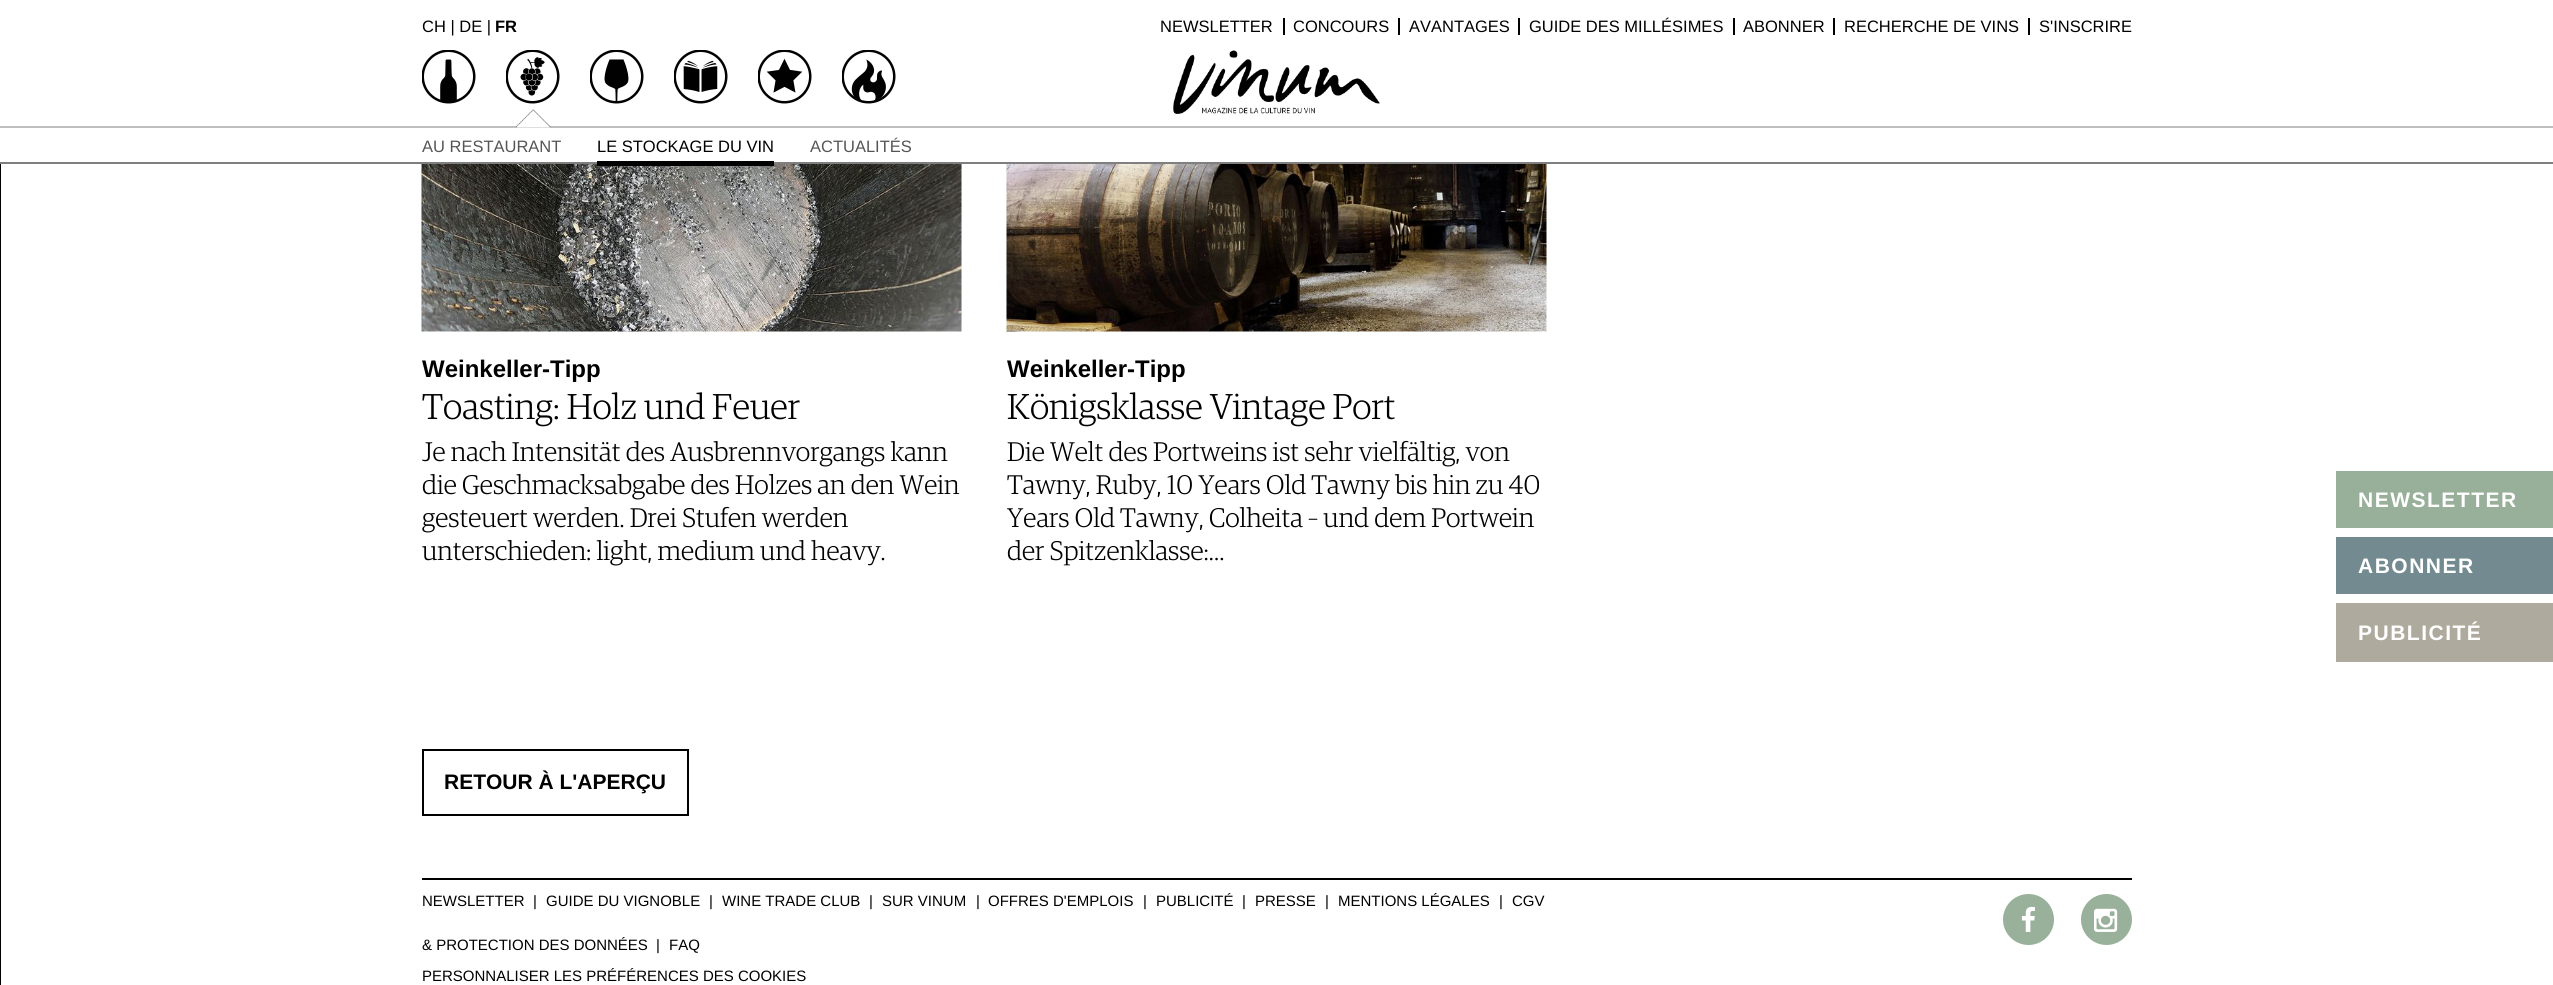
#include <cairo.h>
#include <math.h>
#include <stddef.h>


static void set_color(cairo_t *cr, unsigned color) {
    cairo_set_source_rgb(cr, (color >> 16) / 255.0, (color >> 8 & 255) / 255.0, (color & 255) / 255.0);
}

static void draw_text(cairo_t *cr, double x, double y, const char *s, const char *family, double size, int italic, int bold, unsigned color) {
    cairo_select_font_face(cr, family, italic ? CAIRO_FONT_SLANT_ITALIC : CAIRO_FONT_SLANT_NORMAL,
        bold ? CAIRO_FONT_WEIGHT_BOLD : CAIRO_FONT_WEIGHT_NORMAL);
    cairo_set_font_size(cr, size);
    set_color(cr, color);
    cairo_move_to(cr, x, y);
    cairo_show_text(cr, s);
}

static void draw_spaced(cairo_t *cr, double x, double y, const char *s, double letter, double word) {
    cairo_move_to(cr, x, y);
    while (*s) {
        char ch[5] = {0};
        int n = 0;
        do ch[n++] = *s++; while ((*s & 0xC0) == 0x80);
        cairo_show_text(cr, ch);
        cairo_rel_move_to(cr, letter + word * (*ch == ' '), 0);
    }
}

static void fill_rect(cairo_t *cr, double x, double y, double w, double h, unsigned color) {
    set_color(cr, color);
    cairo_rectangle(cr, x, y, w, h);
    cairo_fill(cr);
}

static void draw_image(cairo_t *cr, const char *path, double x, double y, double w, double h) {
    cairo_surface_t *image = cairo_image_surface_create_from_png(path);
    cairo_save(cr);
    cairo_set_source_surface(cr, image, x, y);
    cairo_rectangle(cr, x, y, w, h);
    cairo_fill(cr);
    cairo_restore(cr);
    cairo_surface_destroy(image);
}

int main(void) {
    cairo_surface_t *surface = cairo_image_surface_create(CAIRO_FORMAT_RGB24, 2553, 985);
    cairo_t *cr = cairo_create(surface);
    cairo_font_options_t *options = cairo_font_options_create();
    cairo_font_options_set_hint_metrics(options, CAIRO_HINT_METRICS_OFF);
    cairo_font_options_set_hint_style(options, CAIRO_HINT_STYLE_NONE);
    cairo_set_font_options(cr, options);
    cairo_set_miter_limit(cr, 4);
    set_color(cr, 0xFFFFFF);
    cairo_paint(cr);
    fill_rect(cr, 0, 164, 1, 821, 0x000000);
    fill_rect(cr, 0, 162, 2553, 2, 0x7F7F7F);
    draw_text(cr, 422, 32, "CH | DE |", "Liberation Sans", 16.5, 0, 0, 0x000000);
    draw_text(cr, 495, 32, "FR", "Liberation Sans", 16.5, 0, 1, 0x000000);
    fill_rect(cr, 1283, 18, 2, 17, 0x000000);
    draw_text(cr, 1160, 32, "NEWSLETTER", "Liberation Sans", 16.5, 0, 0, 0x000000);
    fill_rect(cr, 1398, 18, 2, 17, 0x000000);
    draw_text(cr, 1293, 32, "CONCOURS", "Liberation Sans", 16.5, 0, 0, 0x000000);
    fill_rect(cr, 1518, 18, 2, 17, 0x000000);
    draw_text(cr, 1409, 32, "AVANTAGES", "Liberation Sans", 16.5, 0, 0, 0x000000);
    fill_rect(cr, 1733, 18, 2, 17, 0x000000);
    draw_text(cr, 1529, 32, "GUIDE DES MILLÉSIMES", "Liberation Sans", 16.5, 0, 0, 0x000000);
    fill_rect(cr, 1833, 18, 2, 17, 0x000000);
    draw_text(cr, 1743, 32, "ABONNER", "Liberation Sans", 16.5, 0, 0, 0x000000);
    fill_rect(cr, 2028, 18, 2, 17, 0x000000);
    draw_text(cr, 1844, 32, "RECHERCHE DE VINS", "Liberation Sans", 16.5, 0, 0, 0x000000);
    draw_text(cr, 2039, 32, "S'INSCRIRE", "Liberation Sans", 16.5, 0, 0, 0x000000);
    fill_rect(cr, 0, 126, 2553, 2, 0xBFBFBF);
    draw_image(cr, "assets/img1.png", 422, 50, 54, 54);
    draw_image(cr, "assets/img2.png", 516, 109, 35, 19);
    draw_image(cr, "assets/img3.png", 506, 50, 54, 54);
    draw_image(cr, "assets/img4.png", 590, 50, 54, 54);
    draw_image(cr, "assets/img5.png", 674, 50, 54, 54);
    draw_image(cr, "assets/img6.png", 758, 50, 54, 54);
    draw_image(cr, "assets/img7.png", 842, 50, 54, 54);
    draw_image(cr, "assets/img8.png", 1173, 50, 207, 64);
    draw_text(cr, 422, 152, "AU RESTAURANT", "Liberation Sans", 16.5, 0, 0, 0x555555);
    draw_image(cr, "assets/img9.png", 421, 164, 541, 168);
    fill_rect(cr, 597, 161, 177, 5, 0x000000);
    draw_text(cr, 597, 152, "LE STOCKAGE DU VIN", "Liberation Sans", 16.5, 0, 0, 0x000000);
    draw_text(cr, 810, 152, "ACTUALITÉS", "Liberation Sans", 16.5, 0, 0, 0x555555);
    draw_text(cr, 422, 377, "Weinkeller-Tipp", "Liberation Sans", 24, 0, 1, 0x000000);
    draw_text(cr, 422, 419, "Toasting: Holz und Feuer", "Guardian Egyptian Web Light", 36, 0, 0, 0x000000);
    draw_text(cr, 422, 461, "Je nach Intensität des Ausbrennvorgangs kann", "Guardian Egyptian Web Light", 27, 0, 0, 0x000000);
    draw_text(cr, 422, 494, "die Geschmacksabgabe des Holzes an den Wein", "Guardian Egyptian Web Light", 27, 0, 0, 0x000000);
    draw_text(cr, 422, 527, "gesteuert werden. Drei Stufen werden", "Guardian Egyptian Web Light", 27, 0, 0, 0x000000);
    draw_text(cr, 422, 560, "unterschieden: light, medium und heavy.", "Guardian Egyptian Web Light", 27, 0, 0, 0x000000);
    draw_image(cr, "assets/img10.png", 1006, 164, 541, 168);
    draw_text(cr, 1007, 377, "Weinkeller-Tipp", "Liberation Sans", 24, 0, 1, 0x000000);
    draw_text(cr, 1007, 419, "Königsklasse Vintage Port", "Guardian Egyptian Web Light", 36, 0, 0, 0x000000);
    draw_text(cr, 1007, 461, "Die Welt des Portweins ist sehr vielfältig, von", "Guardian Egyptian Web Light", 27, 0, 0, 0x000000);
    draw_text(cr, 1007, 494, "Tawny, Ruby, 10 Years Old Tawny bis hin zu 40", "Guardian Egyptian Web Light", 27, 0, 0, 0x000000);
    draw_text(cr, 1007, 527, "Years Old Tawny, Colheita – und dem Portwein", "Guardian Egyptian Web Light", 27, 0, 0, 0x000000);
    draw_text(cr, 1007, 560, "der Spitzenklasse:…", "Guardian Egyptian Web Light", 27, 0, 0, 0x000000);
    cairo_rectangle(cr, 423, 750, 265, 65);
    cairo_stroke(cr);
    draw_text(cr, 444, 789, "RETOUR À L'APERÇU", "Liberation Sans", 21, 0, 1, 0x000000);
    fill_rect(cr, 422, 878, 1710, 2, 0x000000);
    draw_text(cr, 422, 906, "NEWSLETTER", "Liberation Sans", 15, 0, 0, 0x000000);
    draw_text(cr, 533, 906, "|", "Liberation Sans", 15, 0, 0, 0x000000);
    draw_text(cr, 546, 906, "GUIDE DU VIGNOBLE", "Liberation Sans", 15, 0, 0, 0x000000);
    draw_text(cr, 709, 906, "|", "Liberation Sans", 15, 0, 0, 0x000000);
    draw_text(cr, 722, 906, "WINE TRADE CLUB", "Liberation Sans", 15, 0, 0, 0x000000);
    draw_text(cr, 869, 906, "|", "Liberation Sans", 15, 0, 0, 0x000000);
    draw_text(cr, 882, 906, "SUR VINUM", "Liberation Sans", 15, 0, 0, 0x000000);
    draw_text(cr, 976, 906, "|", "Liberation Sans", 15, 0, 0, 0x000000);
    draw_text(cr, 988, 906, "OFFRES D'EMPLOIS", "Liberation Sans", 15, 0, 0, 0x000000);
    draw_text(cr, 1143, 906, "|", "Liberation Sans", 15, 0, 0, 0x000000);
    draw_text(cr, 1156, 906, "PUBLICITÉ", "Liberation Sans", 15, 0, 0, 0x000000);
    draw_text(cr, 1242, 906, "|", "Liberation Sans", 15, 0, 0, 0x000000);
    draw_text(cr, 1255, 906, "PRESSE", "Liberation Sans", 15, 0, 0, 0x000000);
    draw_text(cr, 1325, 906, "|", "Liberation Sans", 15, 0, 0, 0x000000);
    draw_text(cr, 1338, 906, "MENTIONS LÉGALES", "Liberation Sans", 15, 0, 0, 0x000000);
    draw_text(cr, 1499, 906, "|", "Liberation Sans", 15, 0, 0, 0x000000);
    draw_text(cr, 1512, 906, "CGV", "Liberation Sans", 15, 0, 0, 0x000000);
    draw_text(cr, 422, 950, "& PROTECTION DES DONNÉES", "Liberation Sans", 15, 0, 0, 0x000000);
    draw_text(cr, 656, 950, "|", "Liberation Sans", 15, 0, 0, 0x000000);
    draw_text(cr, 669, 950, "FAQ", "Liberation Sans", 15, 0, 0, 0x000000);
    draw_text(cr, 422, 981, "PERSONNALISER LES PRÉFÉRENCES DES COOKIES", "Liberation Sans", 15, 0, 0, 0x000000);
    set_color(cr, 0x99B19A);
    cairo_new_path(cr);
    cairo_arc(cr, 2028.5, 919.5, 25.5, 0, 2 * M_PI);
    cairo_fill(cr);
    draw_image(cr, "assets/img11.png", 2021, 906, 14, 26);
    cairo_arc(cr, 2106.5, 919.5, 25.5, 0, 2 * M_PI);
    cairo_fill(cr);
    draw_image(cr, "assets/img12.png", 2094, 908, 24, 24);
    fill_rect(cr, 2336, 471, 217, 57, 0x98AF99);
    cairo_select_font_face(cr, "Liberation Sans", CAIRO_FONT_SLANT_NORMAL, CAIRO_FONT_WEIGHT_BOLD);
    cairo_set_font_size(cr, 21);
    set_color(cr, 0xFFFFFF);
    draw_spaced(cr, 2358, 507, "NEWSLETTER", 1.5, 0);
    fill_rect(cr, 2336, 537, 217, 57, 0x738B90);
    set_color(cr, 0xFFFFFF);
    draw_spaced(cr, 2358, 573, "ABONNER", 1.5, 0);
    fill_rect(cr, 2336, 603, 217, 59, 0xAFAA9E);
    set_color(cr, 0xFFFFFF);
    draw_spaced(cr, 2358, 640, "PUBLICITÉ", 1.5, 0);
    cairo_surface_write_to_png(surface, "output.png");
    cairo_font_options_destroy(options);
    cairo_destroy(cr);
    cairo_surface_destroy(surface);
    return 0;
}
